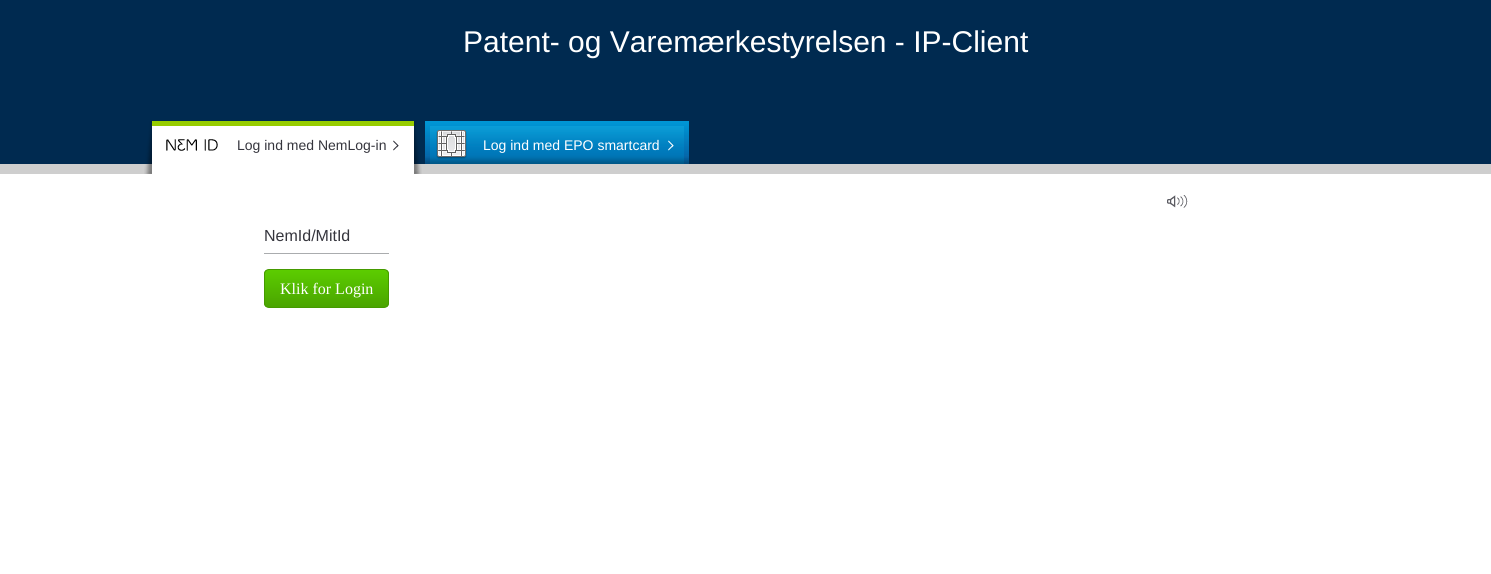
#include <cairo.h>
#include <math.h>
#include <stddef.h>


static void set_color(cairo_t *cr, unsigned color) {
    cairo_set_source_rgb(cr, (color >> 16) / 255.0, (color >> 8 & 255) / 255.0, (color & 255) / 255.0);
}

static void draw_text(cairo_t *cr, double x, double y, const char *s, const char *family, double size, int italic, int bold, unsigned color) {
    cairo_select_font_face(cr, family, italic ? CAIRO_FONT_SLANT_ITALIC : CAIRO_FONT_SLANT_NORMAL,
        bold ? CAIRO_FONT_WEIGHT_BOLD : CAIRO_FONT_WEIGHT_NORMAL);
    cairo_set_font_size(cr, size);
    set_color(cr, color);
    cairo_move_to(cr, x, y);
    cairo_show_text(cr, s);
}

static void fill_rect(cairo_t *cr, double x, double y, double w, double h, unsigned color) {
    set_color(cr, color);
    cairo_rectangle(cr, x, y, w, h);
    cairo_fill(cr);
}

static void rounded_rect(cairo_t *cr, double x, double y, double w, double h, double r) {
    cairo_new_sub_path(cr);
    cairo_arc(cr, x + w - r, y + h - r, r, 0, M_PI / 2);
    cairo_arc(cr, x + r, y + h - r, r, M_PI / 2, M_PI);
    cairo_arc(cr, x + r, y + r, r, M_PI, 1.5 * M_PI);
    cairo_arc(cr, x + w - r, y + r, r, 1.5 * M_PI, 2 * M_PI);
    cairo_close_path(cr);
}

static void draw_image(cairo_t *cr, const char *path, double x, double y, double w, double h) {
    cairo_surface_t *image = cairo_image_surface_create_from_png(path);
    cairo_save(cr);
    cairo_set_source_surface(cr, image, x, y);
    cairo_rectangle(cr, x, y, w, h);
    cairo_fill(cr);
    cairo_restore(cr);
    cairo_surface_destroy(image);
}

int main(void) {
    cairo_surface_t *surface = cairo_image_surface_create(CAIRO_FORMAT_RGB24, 1491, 574);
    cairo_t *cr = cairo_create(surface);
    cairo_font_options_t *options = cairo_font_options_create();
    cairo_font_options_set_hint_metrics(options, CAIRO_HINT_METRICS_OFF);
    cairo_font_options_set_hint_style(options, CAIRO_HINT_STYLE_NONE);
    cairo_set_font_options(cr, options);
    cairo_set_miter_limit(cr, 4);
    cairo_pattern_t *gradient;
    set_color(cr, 0x002A50);
    cairo_paint(cr);
    fill_rect(cr, 0, 164, 1491, 10, 0xCECECE);
    draw_text(cr, 463, 52, "Patent- og Varemærkestyrelsen - IP-Client", "Liberation Sans", 30, 0, 0, 0xFFFFFF);
    draw_image(cr, "assets/img1.png", 144, 121, 249, 53);
    draw_image(cr, "assets/img2.png", 393, 121, 29, 53);
    draw_image(cr, "assets/img3.png", 166, 139, 52, 12);
    draw_text(cr, 237, 150, "Log ind med NemLog-in", "Liberation Sans", 14, 0, 0, 0x35353D);
    draw_image(cr, "assets/img4.png", 425, 121, 264, 43);
    draw_image(cr, "assets/img5.png", 668, 126, 21, 38);
    draw_image(cr, "assets/img6.png", 436, 130, 31, 29);
    draw_text(cr, 483, 150, "Log ind med EPO smartcard", "Liberation Sans", 14, 0, 0, 0xFFFFFF);
    fill_rect(cr, 0, 174, 1491, 400, 0xFFFFFF);
    draw_image(cr, "assets/img7.png", 1167, 195, 21, 13);
    fill_rect(cr, 264, 253, 125, 1, 0xAAACAE);
    draw_text(cr, 264, 241, "NemId/MitId", "Liberation Sans", 16, 0, 0, 0x35353D);
    cairo_save(cr);
    rounded_rect(cr, 264, 269, 125, 39, 5);
    cairo_clip(cr);
    gradient = cairo_pattern_create_linear(327, 270, 327, 307);
    cairo_pattern_add_color_stop_rgba(gradient, 0, 0.361, 0.804, 0, 1);
    cairo_pattern_add_color_stop_rgba(gradient, 1, 0.29, 0.643, 0, 1);
    cairo_set_source(cr, gradient);
    cairo_pattern_destroy(gradient);
    cairo_rectangle(cr, 264, 270, 125, 37);
    cairo_fill(cr);
    cairo_restore(cr);
    rounded_rect(cr, 264.5, 269.5, 124, 38, 4.5);
    set_color(cr, 0x459A00);
    cairo_set_line_width(cr, 1);
    cairo_stroke(cr);
    draw_text(cr, 280, 294, "Klik for Login", "Liberation Serif", 16, 0, 0, 0xFFFFFF);
    cairo_surface_write_to_png(surface, "output.png");
    cairo_font_options_destroy(options);
    cairo_destroy(cr);
    cairo_surface_destroy(surface);
    return 0;
}
